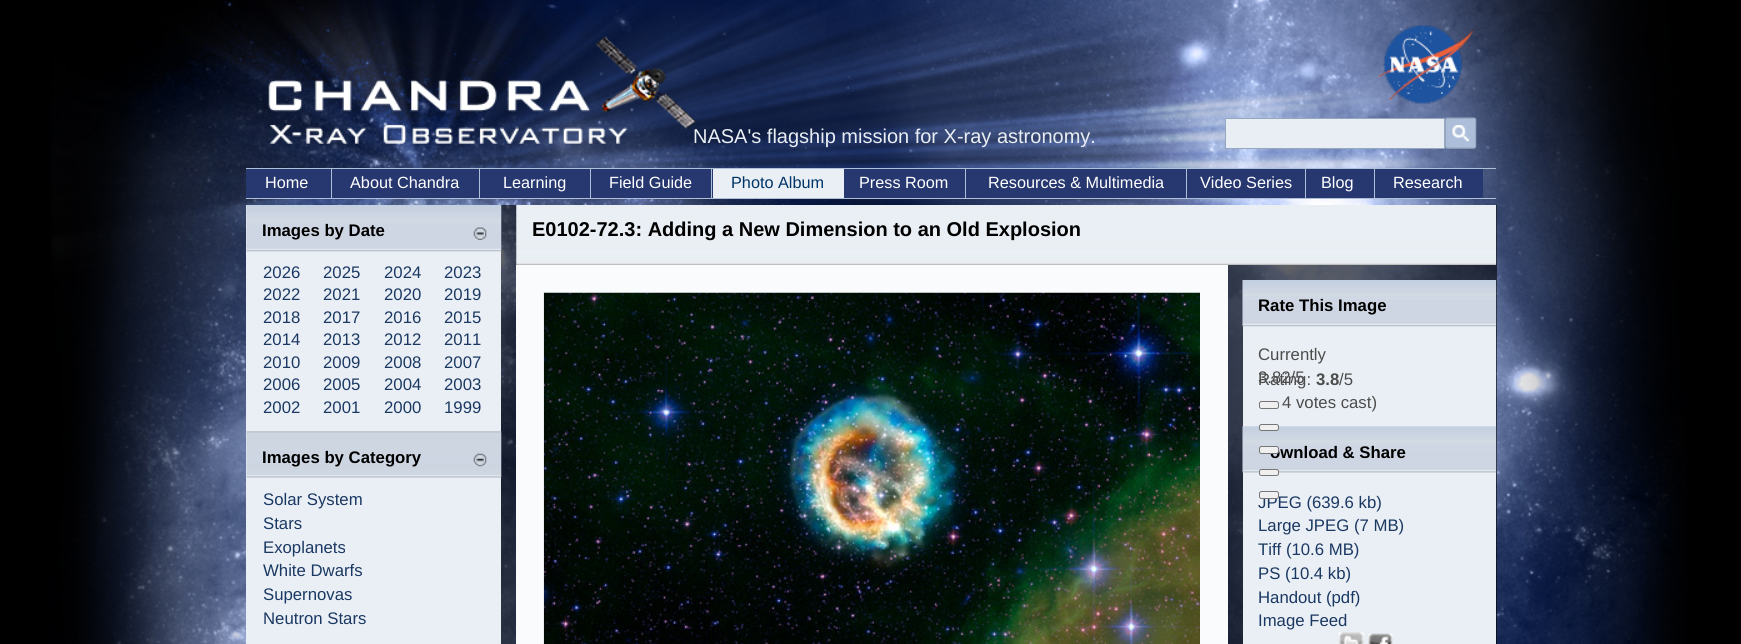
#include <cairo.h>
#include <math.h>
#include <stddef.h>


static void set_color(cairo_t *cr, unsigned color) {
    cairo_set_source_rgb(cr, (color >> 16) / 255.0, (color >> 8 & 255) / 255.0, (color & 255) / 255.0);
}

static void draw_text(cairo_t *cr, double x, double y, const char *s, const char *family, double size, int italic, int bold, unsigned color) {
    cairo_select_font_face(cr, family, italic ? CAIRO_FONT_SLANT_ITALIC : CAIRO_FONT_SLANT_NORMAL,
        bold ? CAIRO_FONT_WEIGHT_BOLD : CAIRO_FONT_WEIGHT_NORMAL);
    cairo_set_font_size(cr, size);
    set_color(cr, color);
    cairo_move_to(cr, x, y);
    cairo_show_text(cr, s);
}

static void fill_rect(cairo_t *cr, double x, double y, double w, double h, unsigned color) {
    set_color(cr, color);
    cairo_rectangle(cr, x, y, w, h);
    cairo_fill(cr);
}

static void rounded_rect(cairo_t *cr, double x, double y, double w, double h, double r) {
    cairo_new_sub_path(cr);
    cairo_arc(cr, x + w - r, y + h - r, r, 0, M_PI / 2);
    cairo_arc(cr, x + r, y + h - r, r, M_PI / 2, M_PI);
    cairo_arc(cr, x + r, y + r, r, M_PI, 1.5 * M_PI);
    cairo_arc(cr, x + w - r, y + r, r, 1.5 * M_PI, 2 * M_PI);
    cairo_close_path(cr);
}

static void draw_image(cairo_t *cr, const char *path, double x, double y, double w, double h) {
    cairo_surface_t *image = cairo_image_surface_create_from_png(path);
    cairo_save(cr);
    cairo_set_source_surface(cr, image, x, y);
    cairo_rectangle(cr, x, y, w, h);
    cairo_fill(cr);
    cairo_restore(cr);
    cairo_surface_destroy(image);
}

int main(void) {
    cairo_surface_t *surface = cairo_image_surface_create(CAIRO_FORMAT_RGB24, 1741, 644);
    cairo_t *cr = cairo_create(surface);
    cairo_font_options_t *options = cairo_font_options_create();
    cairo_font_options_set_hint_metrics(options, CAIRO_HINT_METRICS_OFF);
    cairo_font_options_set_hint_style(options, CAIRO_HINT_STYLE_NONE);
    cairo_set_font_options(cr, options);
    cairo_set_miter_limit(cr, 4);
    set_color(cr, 0x000000);
    cairo_paint(cr);
    draw_image(cr, "assets/img1.png", 51, 0, 1635, 644);
    draw_image(cr, "assets/img2.png", 268, 36, 697, 115);
    draw_image(cr, "assets/img3.png", 1378, 25, 96, 79);
    draw_text(cr, 693, 143, "NASA's flagship mission for X-ray astronomy.", "Liberation Sans", 20, 0, 0, 0xE9EEF4);
    cairo_rectangle(cr, 1225.5, 118.5, 219, 30);
    cairo_fill_preserve(cr);
    set_color(cr, 0x96A8BE);
    cairo_set_line_width(cr, 1);
    cairo_stroke(cr);
    draw_image(cr, "assets/img4.png", 1445, 117, 32, 32);
    fill_rect(cr, 246, 168, 1250, 1, 0xAEBFD7);
    fill_rect(cr, 246, 198, 1250, 1, 0xAEBFD7);
    fill_rect(cr, 246, 169, 233, 29, 0x273870);
    fill_rect(cr, 331, 169, 1, 29, 0xAEBFD7);
    draw_text(cr, 265, 188, "Home", "Liberation Sans", 16.25, 0, 0, 0xFFFFFF);
    fill_rect(cr, 479, 169, 1, 29, 0xAEBFD7);
    draw_text(cr, 350, 188, "About Chandra", "Liberation Sans", 16.25, 0, 0, 0xFFFFFF);
    fill_rect(cr, 480, 169, 110, 29, 0x273870);
    fill_rect(cr, 590, 169, 1, 29, 0xAEBFD7);
    draw_text(cr, 503, 188, "Learning", "Liberation Sans", 16.25, 0, 0, 0xFFFFFF);
    fill_rect(cr, 591, 169, 122, 29, 0x273870);
    fill_rect(cr, 711, 169, 1, 29, 0xAEBFD7);
    draw_text(cr, 609, 188, "Field Guide", "Liberation Sans", 16.25, 0, 0, 0xFFFFFF);
    fill_rect(cr, 713, 169, 131, 29, 0xEAEFF5);
    draw_text(cr, 731, 188, "Photo Album", "Liberation Sans", 16.25, 0, 0, 0x003466);
    fill_rect(cr, 844, 169, 121, 29, 0x273870);
    fill_rect(cr, 965, 169, 1, 29, 0xAEBFD7);
    draw_text(cr, 859, 188, "Press Room", "Liberation Sans", 16.25, 0, 0, 0xFFFFFF);
    fill_rect(cr, 966, 169, 339, 29, 0x273870);
    fill_rect(cr, 1186, 169, 1, 29, 0xAEBFD7);
    draw_text(cr, 988, 188, "Resources & Multimedia", "Liberation Sans", 16.25, 0, 0, 0xFFFFFF);
    fill_rect(cr, 1305, 169, 1, 29, 0xAEBFD7);
    draw_text(cr, 1200, 188, "Video Series", "Liberation Sans", 16.25, 0, 0, 0xFFFFFF);
    fill_rect(cr, 1306, 169, 68, 29, 0x273870);
    fill_rect(cr, 1374, 169, 1, 29, 0xAEBFD7);
    draw_text(cr, 1321, 188, "Blog", "Liberation Sans", 16.25, 0, 0, 0xFFFFFF);
    fill_rect(cr, 1375, 169, 108, 29, 0x273870);
    draw_text(cr, 1393, 188, "Research", "Liberation Sans", 16.25, 0, 0, 0xFFFFFF);
    cairo_set_source_rgba(cr, 0, 0, 0, 0.6);
    cairo_rectangle(cr, 501, 205, 996, 439);
    cairo_fill(cr);
    fill_rect(cr, 246, 205, 255, 439, 0xEAEFF5);
    draw_image(cr, "assets/img5.png", 246, 205, 256, 47);
    draw_text(cr, 262, 236, "Images by Date", "Liberation Sans", 16.75, 0, 1, 0x000000);
    draw_image(cr, "assets/img6.png", 473, 227, 14, 13);
    draw_text(cr, 263, 278, "2026", "Liberation Sans", 16.75, 0, 0, 0x1A3862);
    draw_text(cr, 323, 278, "2025", "Liberation Sans", 16.75, 0, 0, 0x1A3862);
    draw_text(cr, 384, 278, "2024", "Liberation Sans", 16.75, 0, 0, 0x1A3862);
    draw_text(cr, 444, 278, "2023", "Liberation Sans", 16.75, 0, 0, 0x1A3862);
    draw_text(cr, 263, 300, "2022", "Liberation Sans", 16.75, 0, 0, 0x1A3862);
    draw_text(cr, 323, 300, "2021", "Liberation Sans", 16.75, 0, 0, 0x1A3862);
    draw_text(cr, 384, 300, "2020", "Liberation Sans", 16.75, 0, 0, 0x1A3862);
    draw_text(cr, 444, 300, "2019", "Liberation Sans", 16.75, 0, 0, 0x1A3862);
    draw_text(cr, 263, 323, "2018", "Liberation Sans", 16.75, 0, 0, 0x1A3862);
    draw_text(cr, 323, 323, "2017", "Liberation Sans", 16.75, 0, 0, 0x1A3862);
    draw_text(cr, 384, 323, "2016", "Liberation Sans", 16.75, 0, 0, 0x1A3862);
    draw_text(cr, 444, 323, "2015", "Liberation Sans", 16.75, 0, 0, 0x1A3862);
    draw_text(cr, 263, 345, "2014", "Liberation Sans", 16.75, 0, 0, 0x1A3862);
    draw_text(cr, 323, 345, "2013", "Liberation Sans", 16.75, 0, 0, 0x1A3862);
    draw_text(cr, 384, 345, "2012", "Liberation Sans", 16.75, 0, 0, 0x1A3862);
    draw_text(cr, 444, 345, "2011", "Liberation Sans", 16.75, 0, 0, 0x1A3862);
    draw_text(cr, 263, 368, "2010", "Liberation Sans", 16.75, 0, 0, 0x1A3862);
    draw_text(cr, 323, 368, "2009", "Liberation Sans", 16.75, 0, 0, 0x1A3862);
    draw_text(cr, 384, 368, "2008", "Liberation Sans", 16.75, 0, 0, 0x1A3862);
    draw_text(cr, 444, 368, "2007", "Liberation Sans", 16.75, 0, 0, 0x1A3862);
    draw_text(cr, 263, 390, "2006", "Liberation Sans", 16.75, 0, 0, 0x1A3862);
    draw_text(cr, 323, 390, "2005", "Liberation Sans", 16.75, 0, 0, 0x1A3862);
    draw_text(cr, 384, 390, "2004", "Liberation Sans", 16.75, 0, 0, 0x1A3862);
    draw_text(cr, 444, 390, "2003", "Liberation Sans", 16.75, 0, 0, 0x1A3862);
    draw_text(cr, 263, 413, "2002", "Liberation Sans", 16.75, 0, 0, 0x1A3862);
    draw_text(cr, 323, 413, "2001", "Liberation Sans", 16.75, 0, 0, 0x1A3862);
    draw_text(cr, 384, 413, "2000", "Liberation Sans", 16.75, 0, 0, 0x1A3862);
    draw_text(cr, 444, 413, "1999", "Liberation Sans", 16.75, 0, 0, 0x1A3862);
    draw_image(cr, "assets/img7.png", 246, 431, 256, 47);
    draw_text(cr, 262, 463, "Images by Category", "Liberation Sans", 16.75, 0, 1, 0x000000);
    draw_image(cr, "assets/img8.png", 473, 453, 14, 14);
    draw_text(cr, 263, 505, "Solar System", "Liberation Sans", 16.75, 0, 0, 0x1A3862);
    draw_text(cr, 263, 529, "Stars", "Liberation Sans", 16.75, 0, 0, 0x1A3862);
    draw_text(cr, 263, 553, "Exoplanets", "Liberation Sans", 16.75, 0, 0, 0x1A3862);
    draw_text(cr, 263, 576, "White Dwarfs", "Liberation Sans", 16.75, 0, 0, 0x1A3862);
    draw_text(cr, 263, 600, "Supernovas", "Liberation Sans", 16.75, 0, 0, 0x1A3862);
    draw_text(cr, 263, 624, "Neutron Stars", "Liberation Sans", 16.75, 0, 0, 0x1A3862);
    draw_image(cr, "assets/img9.png", 516, 205, 981, 60);
    draw_text(cr, 532, 236, "E0102-72.3: Adding a New Dimension to an Old Explosion", "Liberation Sans", 20, 0, 1, 0x000000);
    fill_rect(cr, 516, 265, 712, 379, 0xFAFBFD);
    draw_image(cr, "assets/img10.png", 543, 292, 657, 352);
    fill_rect(cr, 1243, 326, 253, 318, 0xEAEFF5);
    draw_image(cr, "assets/img11.png", 1242, 280, 255, 47);
    draw_text(cr, 1258, 311, "Rate This Image", "Liberation Sans", 16.75, 0, 1, 0x000000);
    draw_text(cr, 1258, 360, "Currently", "Liberation Sans", 16.75, 0, 0, 0x4C4C4C);
    draw_text(cr, 1258, 385, "Rating:", "Liberation Sans", 16.75, 0, 0, 0x4C4C4C);
    draw_text(cr, 1258, 383, "3.82/5", "Liberation Sans", 16.75, 0, 0, 0x4C4C4C);
    set_color(cr, 0xEFEFEF);
    rounded_rect(cr, 1259.5, 401.5, 19, 7, 2);
    cairo_fill_preserve(cr);
    set_color(cr, 0x767676);
    cairo_stroke(cr);
    draw_image(cr, "assets/img12.png", 1242, 426, 255, 47);
    set_color(cr, 0xEFEFEF);
    rounded_rect(cr, 1259.5, 424.5, 19, 6, 2);
    cairo_fill_preserve(cr);
    set_color(cr, 0x767676);
    cairo_stroke(cr);
    draw_text(cr, 1270, 458, "ownload & Share", "Liberation Sans", 16.75, 0, 1, 0x000000);
    set_color(cr, 0xEFEFEF);
    rounded_rect(cr, 1259.5, 446.5, 19, 7, 2);
    cairo_fill_preserve(cr);
    set_color(cr, 0x767676);
    cairo_stroke(cr);
    set_color(cr, 0xEFEFEF);
    rounded_rect(cr, 1259.5, 469.5, 19, 6, 2);
    cairo_fill_preserve(cr);
    set_color(cr, 0x767676);
    cairo_stroke(cr);
    draw_text(cr, 1258, 508, "JPEG (639.6 kb)", "Liberation Sans", 16.75, 0, 0, 0x1A3862);
    set_color(cr, 0xEFEFEF);
    rounded_rect(cr, 1259.5, 491.5, 19, 7, 2);
    cairo_fill_preserve(cr);
    set_color(cr, 0x767676);
    cairo_stroke(cr);
    draw_text(cr, 1316, 385, "3.8", "Liberation Sans", 16.75, 0, 1, 0x4C4C4C);
    draw_text(cr, 1339, 385, "/5", "Liberation Sans", 16.75, 0, 0, 0x4C4C4C);
    draw_text(cr, 1282, 408, "4 votes cast)", "Liberation Sans", 16.75, 0, 0, 0x4C4C4C);
    draw_text(cr, 1258, 531, "Large JPEG (7 MB)", "Liberation Sans", 16.75, 0, 0, 0x1A3862);
    draw_text(cr, 1258, 555, "Tiff (10.6 MB)", "Liberation Sans", 16.75, 0, 0, 0x1A3862);
    draw_text(cr, 1258, 579, "PS (10.4 kb)", "Liberation Sans", 16.75, 0, 0, 0x1A3862);
    draw_text(cr, 1258, 603, "Handout (pdf)", "Liberation Sans", 16.75, 0, 0, 0x1A3862);
    draw_text(cr, 1258, 626, "Image Feed", "Liberation Sans", 16.75, 0, 0, 0x1A3862);
    draw_image(cr, "assets/img13.png", 1338, 632, 26, 12);
    draw_image(cr, "assets/img14.png", 1368, 633, 25, 11);
    cairo_surface_write_to_png(surface, "output.png");
    cairo_font_options_destroy(options);
    cairo_destroy(cr);
    cairo_surface_destroy(surface);
    return 0;
}
